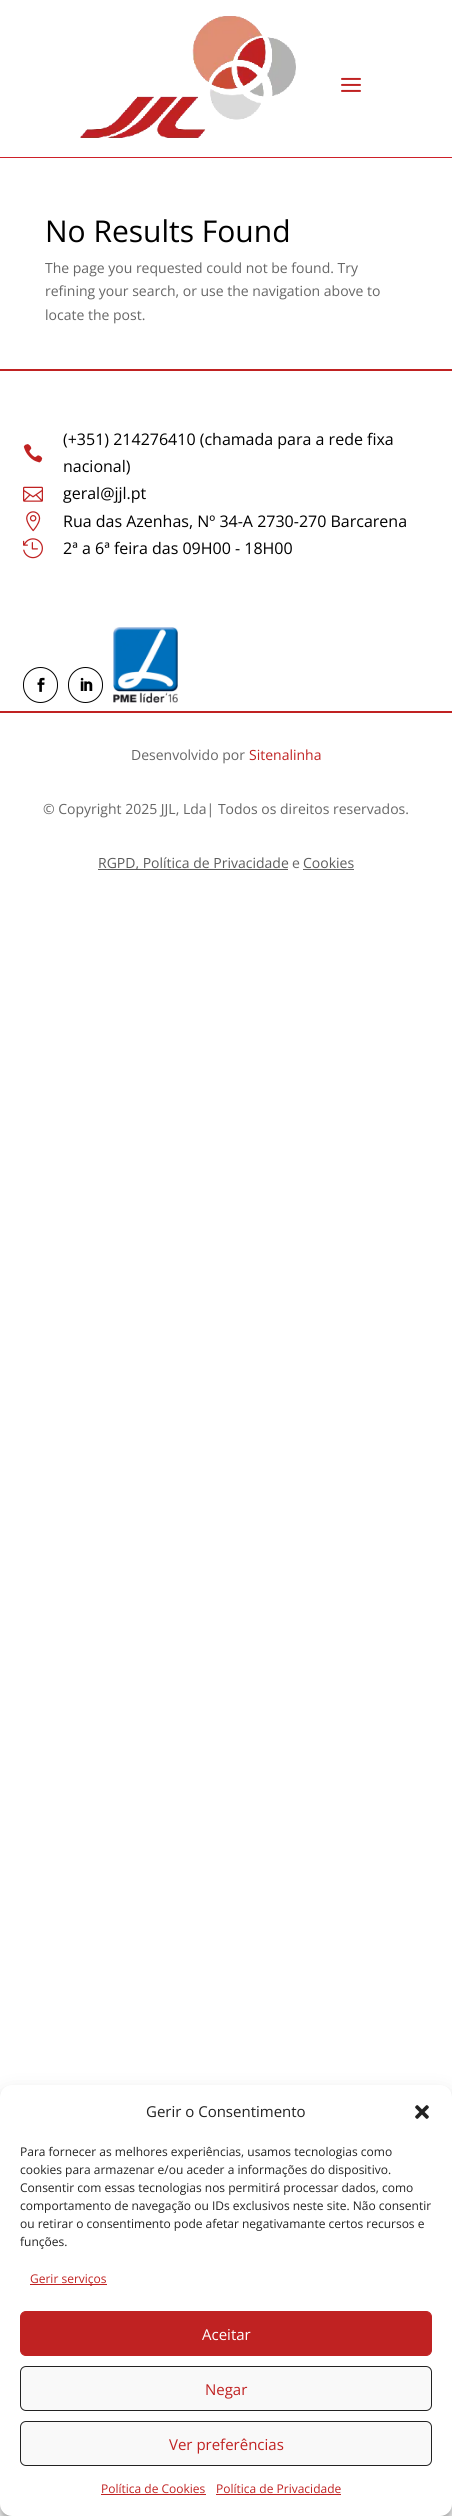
#include <cairo.h>
#include <math.h>
#include <stddef.h>


static void set_color(cairo_t *cr, unsigned color) {
    cairo_set_source_rgb(cr, (color >> 16) / 255.0, (color >> 8 & 255) / 255.0, (color & 255) / 255.0);
}

static void draw_text(cairo_t *cr, double x, double y, const char *s, const char *family, double size, int italic, int bold, unsigned color) {
    cairo_select_font_face(cr, family, italic ? CAIRO_FONT_SLANT_ITALIC : CAIRO_FONT_SLANT_NORMAL,
        bold ? CAIRO_FONT_WEIGHT_BOLD : CAIRO_FONT_WEIGHT_NORMAL);
    cairo_set_font_size(cr, size);
    set_color(cr, color);
    cairo_move_to(cr, x, y);
    cairo_show_text(cr, s);
}

static void fill_rect(cairo_t *cr, double x, double y, double w, double h, unsigned color) {
    set_color(cr, color);
    cairo_rectangle(cr, x, y, w, h);
    cairo_fill(cr);
}

static void rounded_rect(cairo_t *cr, double x, double y, double w, double h, double r) {
    cairo_new_sub_path(cr);
    cairo_arc(cr, x + w - r, y + h - r, r, 0, M_PI / 2);
    cairo_arc(cr, x + r, y + h - r, r, M_PI / 2, M_PI);
    cairo_arc(cr, x + r, y + r, r, M_PI, 1.5 * M_PI);
    cairo_arc(cr, x + w - r, y + r, r, 1.5 * M_PI, 2 * M_PI);
    cairo_close_path(cr);
}

static void draw_shadow(cairo_t *cr, double x, double y, double w, double h, double r, double blur, double alpha) {
    cairo_push_group_with_content(cr, CAIRO_CONTENT_ALPHA);
    cairo_set_operator(cr, CAIRO_OPERATOR_SOURCE);
    for (int i = 15; i >= -15 && fmin(w, h) + blur * i / 3 > 0; i -= 2) {
        double e = blur * i / 6;
        cairo_set_source_rgba(cr, 0, 0, 0, alpha * erfc((i - 1) / 8.5) / 2);
        rounded_rect(cr, x - e, y - e, w + 2 * e, h + 2 * e, fmax(0, fmin(r + e + blur * .6, fmin(w, h) / 2 + e)));
        cairo_fill(cr);
    }
    cairo_pattern_t *soft = cairo_pop_group(cr);
    cairo_mask(cr, soft);
    cairo_pattern_destroy(soft);
}

static void draw_image(cairo_t *cr, const char *path, double x, double y, double w, double h) {
    cairo_surface_t *image = cairo_image_surface_create_from_png(path);
    cairo_save(cr);
    cairo_set_source_surface(cr, image, x, y);
    cairo_rectangle(cr, x, y, w, h);
    cairo_fill(cr);
    cairo_restore(cr);
    cairo_surface_destroy(image);
}

int main(void) {
    cairo_surface_t *surface = cairo_image_surface_create(CAIRO_FORMAT_RGB24, 452, 2516);
    cairo_t *cr = cairo_create(surface);
    cairo_font_options_t *options = cairo_font_options_create();
    cairo_font_options_set_hint_metrics(options, CAIRO_HINT_METRICS_OFF);
    cairo_font_options_set_hint_style(options, CAIRO_HINT_STYLE_NONE);
    cairo_set_font_options(cr, options);
    cairo_set_miter_limit(cr, 4);
    set_color(cr, 0xFFFFFF);
    cairo_paint(cr);
    fill_rect(cr, 0, 157, 452, 1, 0xCE2029);
    draw_image(cr, "assets/img1.png", 80, 16, 216, 122);
    draw_image(cr, "assets/img2.png", 341, 77, 20, 15);
    draw_text(cr, 45, 242, "No Results Found", "Open Sans", 30, 0, 0, 0x000000);
    draw_text(cr, 45, 273, "The page you requested could not be found. Try", "Open Sans", 14, 0, 0, 0x666666);
    draw_text(cr, 45, 296, "refining your search, or use the navigation above to", "Open Sans", 14, 0, 0, 0x666666);
    draw_text(cr, 45, 320, "locate the post.", "Open Sans", 14, 0, 0, 0x666666);
    fill_rect(cr, 0, 369, 452, 2, 0xC02222);
    draw_image(cr, "assets/img3.png", 23, 444, 20, 19);
    draw_text(cr, 63, 445, "(+351) 214276410 (chamada para a rede fixa", "Open Sans", 16, 0, 0, 0x000000);
    draw_text(cr, 63, 472, "nacional)", "Open Sans", 16, 0, 0, 0x000000);
    draw_image(cr, "assets/img4.png", 23, 486, 20, 16);
    draw_text(cr, 63, 499, "geral@jjl.pt", "Open Sans", 16, 0, 0, 0x000000);
    draw_image(cr, "assets/img5.png", 26, 511, 15, 21);
    draw_text(cr, 63, 527, "Rua das Azenhas, Nº 34-A 2730-270 Barcarena", "Open Sans", 16, 0, 0, 0x000000);
    draw_image(cr, "assets/img6.png", 23, 538, 20, 21);
    draw_text(cr, 63, 554, "2ª a 6ª feira das 09H00 - 18H00", "Open Sans", 16, 0, 0, 0x000000);
    rounded_rect(cr, 23.5, 667.5, 34, 35, 17);
    cairo_set_line_width(cr, 1);
    cairo_stroke(cr);
    draw_image(cr, "assets/img7.png", 37, 677, 8, 15);
    rounded_rect(cr, 68.5, 667.5, 34, 35, 17);
    cairo_stroke(cr);
    draw_image(cr, "assets/img8.png", 80, 677, 13, 14);
    draw_image(cr, "assets/img9.png", 113, 627, 65, 76);
    fill_rect(cr, 0, 711, 452, 2, 0xC02222);
    draw_text(cr, 131, 760, "Desenvolvido por", "Open Sans", 14, 0, 0, 0x666666);
    draw_text(cr, 249, 760, "Sitenalinha", "Open Sans", 14, 0, 0, 0xC02222);
    draw_text(cr, 43, 814, "© Copyright 2025 JJL, Lda| Todos os direitos reservados.", "Open Sans", 14, 0, 0, 0x666666);
    fill_rect(cr, 98, 869, 190, 1, 0x5C5C5C);
    draw_text(cr, 98, 868, "RGPD, Política de Privacidade", "Open Sans", 14, 0, 0, 0x5C5C5C);
    draw_text(cr, 292, 868, "e", "Open Sans", 14, 0, 0, 0x666666);
    draw_text(cr, 303, 868, "Cookies", "Open Sans", 14, 0, 0, 0x5C5C5C);
    fill_rect(cr, 303, 869, 51, 1, 0x666666);
    set_color(cr, 0x000000);
    draw_shadow(cr, 0, 2091, 452, 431, 12, 3, 0.23);
    draw_shadow(cr, 0, 2095, 452, 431, 12, 10, 0.19);
    set_color(cr, 0xFFFFFF);
    rounded_rect(cr, 0, 2085, 452, 431, 12);
    cairo_fill(cr);
    draw_text(cr, 146, 2117, "Gerir o Consentimento", "Open Sans", 15, 0, 0, 0x222222);
    draw_image(cr, "assets/img10.png", 415, 2105, 14, 14);
    draw_text(cr, 20, 2156, "Para fornecer as melhores experiências, usamos tecnologias como", "Open Sans", 12, 0, 0, 0x222222);
    draw_text(cr, 20, 2174, "cookies para armazenar e/ou aceder a informações do dispositivo.", "Open Sans", 12, 0, 0, 0x222222);
    draw_text(cr, 20, 2192, "Consentir com essas tecnologias nos permitirá processar dados, como", "Open Sans", 12, 0, 0, 0x222222);
    draw_text(cr, 20, 2210, "comportamento de navegação ou IDs exclusivos neste site. Não consentir", "Open Sans", 12, 0, 0, 0x222222);
    draw_text(cr, 20, 2228, "ou retirar o consentimento pode afetar negativamante certos recursos e", "Open Sans", 12, 0, 0, 0x222222);
    draw_text(cr, 20, 2246, "funções.", "Open Sans", 12, 0, 0, 0x222222);
    fill_rect(cr, 30, 2284, 77, 1, 0xC02222);
    draw_text(cr, 30, 2283, "Gerir serviços", "Open Sans", 12, 0, 0, 0xC02222);
    rounded_rect(cr, 20.5, 2311.5, 411, 44, 5.5);
    cairo_fill_preserve(cr);
    cairo_stroke(cr);
    draw_text(cr, 202, 2340, "Aceitar", "Open Sans", 15, 0, 0, 0xFFFFFF);
    set_color(cr, 0xF9F9F9);
    rounded_rect(cr, 20.5, 2366.5, 411, 44, 5.5);
    cairo_fill_preserve(cr);
    set_color(cr, 0x222222);
    cairo_stroke(cr);
    draw_text(cr, 205, 2395, "Negar", "Open Sans", 15, 0, 0, 0xC02222);
    set_color(cr, 0xF9F9F9);
    rounded_rect(cr, 20.5, 2421.5, 411, 44, 5.5);
    cairo_fill_preserve(cr);
    set_color(cr, 0x222222);
    cairo_stroke(cr);
    draw_text(cr, 169, 2450, "Ver preferências", "Open Sans", 15, 0, 0, 0xC02222);
    draw_text(cr, 101, 2493, "Política de Cookies", "Open Sans", 12, 0, 0, 0xC02222);
    fill_rect(cr, 101, 2494, 105, 1, 0xC02222);
    draw_text(cr, 216, 2493, "Política de Privacidade", "Open Sans", 12, 0, 0, 0xC02222);
    fill_rect(cr, 216, 2494, 125, 1, 0xC02222);
    cairo_surface_write_to_png(surface, "output.png");
    cairo_font_options_destroy(options);
    cairo_destroy(cr);
    cairo_surface_destroy(surface);
    return 0;
}
